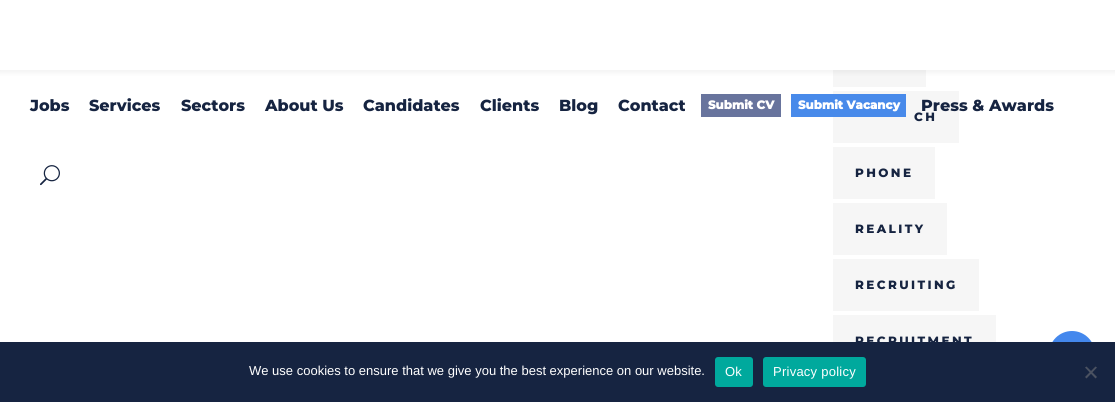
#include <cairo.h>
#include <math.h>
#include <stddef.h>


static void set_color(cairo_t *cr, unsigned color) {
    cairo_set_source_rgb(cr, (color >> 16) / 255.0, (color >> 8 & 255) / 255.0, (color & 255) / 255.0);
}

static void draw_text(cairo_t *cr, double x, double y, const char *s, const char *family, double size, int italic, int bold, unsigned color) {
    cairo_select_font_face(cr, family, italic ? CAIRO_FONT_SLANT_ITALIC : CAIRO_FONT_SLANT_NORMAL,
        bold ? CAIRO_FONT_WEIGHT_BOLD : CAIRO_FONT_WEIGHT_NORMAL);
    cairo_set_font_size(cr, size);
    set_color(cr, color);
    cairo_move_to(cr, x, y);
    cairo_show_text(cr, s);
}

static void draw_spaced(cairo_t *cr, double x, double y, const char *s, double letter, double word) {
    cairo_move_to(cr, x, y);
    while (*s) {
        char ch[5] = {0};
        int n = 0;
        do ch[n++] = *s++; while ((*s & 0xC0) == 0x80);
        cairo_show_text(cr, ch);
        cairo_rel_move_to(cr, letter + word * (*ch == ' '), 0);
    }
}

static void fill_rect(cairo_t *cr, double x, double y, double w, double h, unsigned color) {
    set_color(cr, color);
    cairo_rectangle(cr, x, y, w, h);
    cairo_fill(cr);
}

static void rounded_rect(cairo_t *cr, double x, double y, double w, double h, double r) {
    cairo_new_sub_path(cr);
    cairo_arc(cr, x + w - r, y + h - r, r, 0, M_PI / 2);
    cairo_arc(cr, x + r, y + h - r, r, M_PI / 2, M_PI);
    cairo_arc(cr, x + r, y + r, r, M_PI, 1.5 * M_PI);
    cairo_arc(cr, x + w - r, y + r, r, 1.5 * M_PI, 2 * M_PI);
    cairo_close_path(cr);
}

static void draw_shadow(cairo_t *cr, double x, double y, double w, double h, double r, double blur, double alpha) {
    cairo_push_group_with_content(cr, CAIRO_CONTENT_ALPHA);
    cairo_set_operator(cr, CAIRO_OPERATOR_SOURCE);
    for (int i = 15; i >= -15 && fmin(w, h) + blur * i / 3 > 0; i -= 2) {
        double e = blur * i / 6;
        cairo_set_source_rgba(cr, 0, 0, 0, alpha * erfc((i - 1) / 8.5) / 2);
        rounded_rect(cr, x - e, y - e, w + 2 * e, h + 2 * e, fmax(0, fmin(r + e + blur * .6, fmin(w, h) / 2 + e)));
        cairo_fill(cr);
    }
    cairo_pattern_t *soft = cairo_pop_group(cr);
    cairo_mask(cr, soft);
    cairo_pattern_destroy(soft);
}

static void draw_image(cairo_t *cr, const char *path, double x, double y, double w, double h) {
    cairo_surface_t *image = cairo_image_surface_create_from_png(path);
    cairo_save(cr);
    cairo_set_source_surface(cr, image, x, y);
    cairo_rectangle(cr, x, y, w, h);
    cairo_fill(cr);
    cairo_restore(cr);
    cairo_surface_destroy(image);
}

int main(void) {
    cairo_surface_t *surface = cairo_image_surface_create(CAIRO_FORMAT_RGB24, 1115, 402);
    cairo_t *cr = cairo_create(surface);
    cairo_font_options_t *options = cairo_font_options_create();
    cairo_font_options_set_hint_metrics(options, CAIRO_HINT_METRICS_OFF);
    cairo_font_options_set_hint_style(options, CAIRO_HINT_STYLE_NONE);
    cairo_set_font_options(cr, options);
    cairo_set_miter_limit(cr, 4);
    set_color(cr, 0xFFFFFF);
    cairo_paint(cr);
    fill_rect(cr, 833, 70, 93, 17, 0xF6F6F6);
    set_color(cr, 0x000000);
    draw_shadow(cr, -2, -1, 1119, 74, 0, 2, 0.05);
    fill_rect(cr, 0, 0, 1115, 70, 0xFFFFFF);
    draw_text(cr, 30, 111, "Jobs", "Montserrat Thin", 16, 0, 0, 0x162441);
    draw_text(cr, 89, 111, "Services", "Montserrat Thin", 16, 0, 0, 0x162441);
    draw_text(cr, 181, 111, "Sectors", "Montserrat Thin", 16, 0, 0, 0x162441);
    draw_text(cr, 265, 111, "About Us", "Montserrat Thin", 16, 0, 0, 0x162441);
    draw_text(cr, 363, 111, "Candidates", "Montserrat Thin", 16, 0, 0, 0x162441);
    draw_text(cr, 480, 111, "Clients", "Montserrat Thin", 16, 0, 0, 0x162441);
    draw_text(cr, 559, 111, "Blog", "Montserrat Thin", 16, 0, 0, 0x162441);
    draw_text(cr, 618, 111, "Contact", "Montserrat Thin", 16, 0, 0, 0x162441);
    fill_rect(cr, 701, 94, 80, 23, 0x68749D);
    draw_text(cr, 708, 109, "Submit CV", "Montserrat", 11.75, 0, 1, 0xFFFFFF);
    fill_rect(cr, 833, 91, 126, 52, 0xF6F6F6);
    fill_rect(cr, 791, 94, 115, 23, 0x488AEA);
    draw_text(cr, 798, 109, "Submit Vacancy", "Montserrat", 11.75, 0, 1, 0xFFFFFF);
    draw_text(cr, 921, 111, "Press & Awards", "Montserrat Thin", 16, 0, 0, 0x162441);
    draw_image(cr, "assets/img1.png", 40, 165, 20, 21);
    cairo_set_font_size(cr, 12);
    draw_spaced(cr, 914, 121, "CH", 2.4, 0);
    fill_rect(cr, 833, 147, 102, 52, 0xF6F6F6);
    set_color(cr, 0x162441);
    draw_spaced(cr, 855, 177, "PHONE", 2.4, 0);
    fill_rect(cr, 833, 203, 114, 52, 0xF6F6F6);
    set_color(cr, 0x162441);
    draw_spaced(cr, 855, 233, "REALITY", 2.4, 0);
    fill_rect(cr, 833, 259, 146, 52, 0xF6F6F6);
    set_color(cr, 0x162441);
    draw_spaced(cr, 855, 289, "RECRUITING", 2.4, 0);
    fill_rect(cr, 833, 315, 163, 27, 0xF6F6F6);
    set_color(cr, 0x162441);
    draw_spaced(cr, 855, 345, "RECRUITMENT", 2.4, 0);
    set_color(cr, 0x4488ED);
    cairo_new_path(cr);
    cairo_arc(cr, 1072, 354, 23, 0, 2 * M_PI);
    cairo_fill(cr);
    fill_rect(cr, 0, 342, 1115, 60, 0x162441);
    draw_text(cr, 249, 375, "We use cookies to ensure that we give you the best experience on our website.", "Liberation Sans", 13, 0, 0, 0xFFFFFF);
    set_color(cr, 0x00A99D);
    rounded_rect(cr, 715, 357, 38, 30, 3);
    cairo_fill(cr);
    set_color(cr, 0xFFFFFF);
    draw_spaced(cr, 725, 376, "Ok", 0.25, 0);
    set_color(cr, 0x00A99D);
    rounded_rect(cr, 763, 357, 103, 30, 3);
    cairo_fill(cr);
    set_color(cr, 0xFFFFFF);
    draw_spaced(cr, 773, 376, "Privacy policy", 0.25, 0);
    set_color(cr, 0x4B5261);
    cairo_new_path(cr);
    cairo_move_to(cr, 1095.5, 366.5);
    cairo_line_to(cr, 1097, 367.5);
    cairo_line_to(cr, 1086.5, 378.5);
    cairo_line_to(cr, 1085, 377);
    cairo_close_path(cr);
    cairo_fill(cr);
    cairo_new_path(cr);
    cairo_move_to(cr, 1085, 367.5);
    cairo_line_to(cr, 1086.5, 366.5);
    cairo_line_to(cr, 1097, 377);
    cairo_line_to(cr, 1095.5, 378.5);
    cairo_close_path(cr);
    cairo_fill(cr);
    cairo_surface_write_to_png(surface, "output.png");
    cairo_font_options_destroy(options);
    cairo_destroy(cr);
    cairo_surface_destroy(surface);
    return 0;
}
